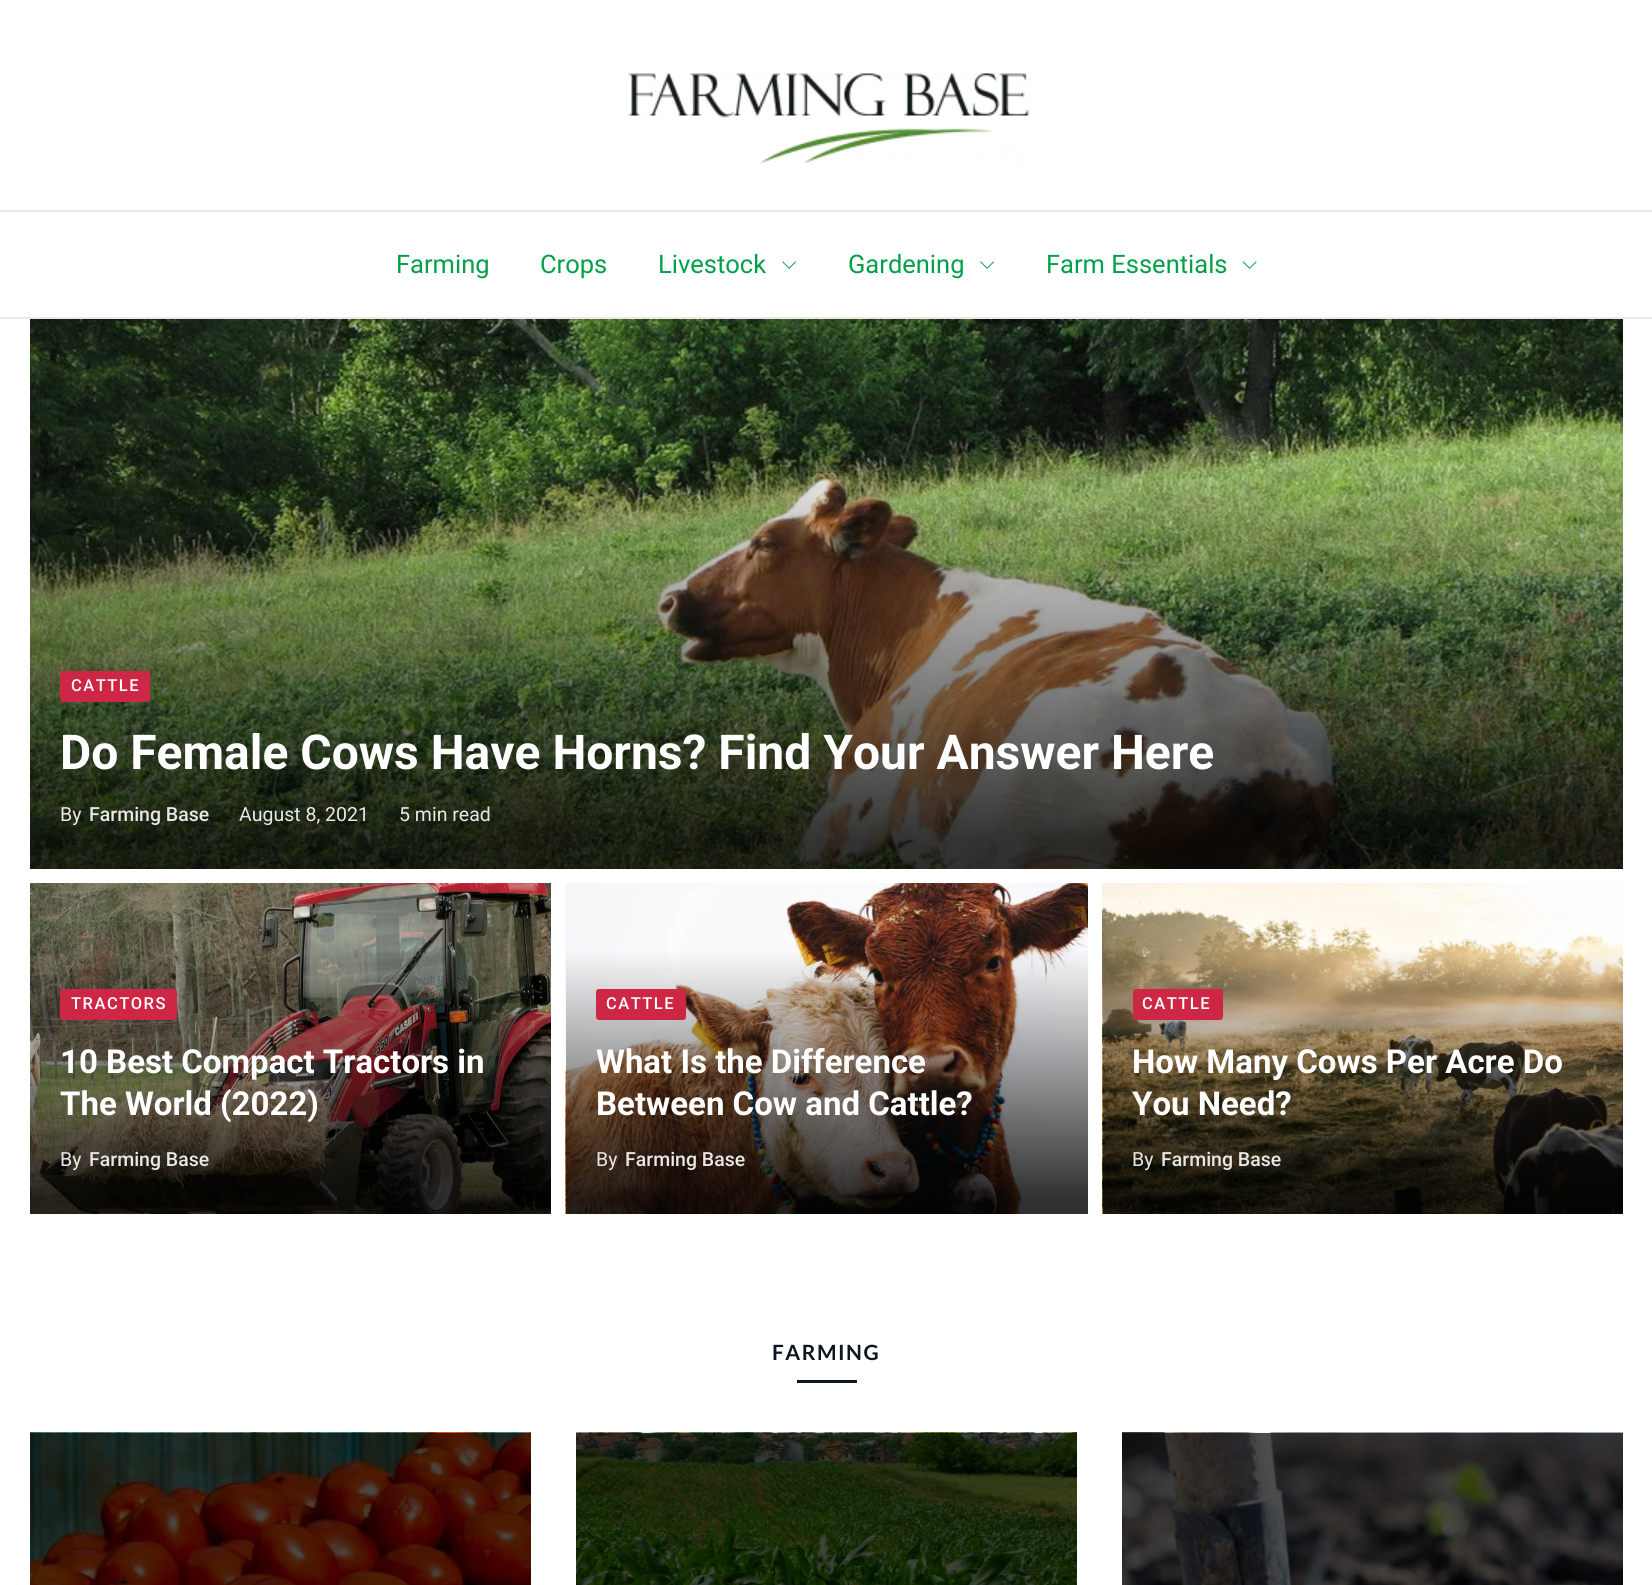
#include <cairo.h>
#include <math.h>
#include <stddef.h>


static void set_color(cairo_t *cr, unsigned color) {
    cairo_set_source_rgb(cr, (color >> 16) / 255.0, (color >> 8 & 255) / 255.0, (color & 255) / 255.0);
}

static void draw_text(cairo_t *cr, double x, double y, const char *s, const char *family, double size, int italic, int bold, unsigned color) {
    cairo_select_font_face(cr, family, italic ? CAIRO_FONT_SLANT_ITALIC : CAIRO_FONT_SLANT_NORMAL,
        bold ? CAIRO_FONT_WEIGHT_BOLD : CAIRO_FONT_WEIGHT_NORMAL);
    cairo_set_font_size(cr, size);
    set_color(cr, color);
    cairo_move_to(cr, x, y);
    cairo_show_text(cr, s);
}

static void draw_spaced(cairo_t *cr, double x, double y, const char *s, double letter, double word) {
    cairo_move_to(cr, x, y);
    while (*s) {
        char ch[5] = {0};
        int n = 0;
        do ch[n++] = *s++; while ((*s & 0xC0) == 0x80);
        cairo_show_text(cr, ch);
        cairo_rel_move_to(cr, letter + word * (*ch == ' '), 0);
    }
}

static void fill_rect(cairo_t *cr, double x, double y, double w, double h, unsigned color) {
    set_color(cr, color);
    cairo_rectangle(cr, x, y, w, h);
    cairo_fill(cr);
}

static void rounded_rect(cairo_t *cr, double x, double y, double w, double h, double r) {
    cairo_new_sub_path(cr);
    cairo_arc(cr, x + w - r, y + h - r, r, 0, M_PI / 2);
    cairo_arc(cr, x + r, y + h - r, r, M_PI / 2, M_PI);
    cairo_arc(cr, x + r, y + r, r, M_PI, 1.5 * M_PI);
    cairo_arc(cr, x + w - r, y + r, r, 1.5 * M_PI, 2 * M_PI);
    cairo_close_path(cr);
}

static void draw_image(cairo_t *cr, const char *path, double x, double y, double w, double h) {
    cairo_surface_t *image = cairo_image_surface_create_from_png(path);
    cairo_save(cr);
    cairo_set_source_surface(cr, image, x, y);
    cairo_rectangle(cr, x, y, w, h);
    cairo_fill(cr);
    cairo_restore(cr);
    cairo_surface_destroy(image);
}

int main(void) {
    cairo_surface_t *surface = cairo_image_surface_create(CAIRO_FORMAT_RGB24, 1652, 1585);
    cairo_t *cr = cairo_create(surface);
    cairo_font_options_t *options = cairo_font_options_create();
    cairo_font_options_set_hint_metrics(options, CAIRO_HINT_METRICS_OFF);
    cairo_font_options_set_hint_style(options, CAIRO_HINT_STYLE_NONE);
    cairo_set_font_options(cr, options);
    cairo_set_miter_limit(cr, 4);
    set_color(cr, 0xFFFFFF);
    cairo_paint(cr);
    fill_rect(cr, 0, 210, 1652, 2, 0xEAEAEA);
    draw_image(cr, "assets/img1.png", 628, 73, 402, 91);
    fill_rect(cr, 0, 317, 1652, 2, 0xEAEAEA);
    draw_text(cr, 396, 273, "Farming", "Roboto", 25.5, 0, 0, 0x01A049);
    draw_text(cr, 540, 273, "Crops", "Roboto", 25.5, 0, 0, 0x01A049);
    draw_text(cr, 658, 273, "Livestock", "Roboto", 25.5, 0, 0, 0x01A049);
    draw_image(cr, "assets/img2.png", 782, 261, 14, 8);
    draw_text(cr, 848, 273, "Gardening", "Roboto", 25.5, 0, 0, 0x01A049);
    draw_image(cr, "assets/img2.png", 980, 261, 14, 8);
    draw_text(cr, 1046, 273, "Farm Essentials", "Roboto", 25.5, 0, 0, 0x01A049);
    draw_image(cr, "assets/img3.png", 1242, 261, 15, 8);
    draw_image(cr, "assets/img4.png", 30, 319, 1593, 550);
    set_color(cr, 0xCE2746);
    rounded_rect(cr, 60, 671, 90, 31, 3);
    cairo_fill(cr);
    cairo_select_font_face(cr, "Roboto Medium", CAIRO_FONT_SLANT_NORMAL, CAIRO_FONT_WEIGHT_NORMAL);
    cairo_set_font_size(cr, 16.5);
    set_color(cr, 0xFFFFFF);
    draw_spaced(cr, 71, 691, "CATTLE", 1.5, 0);
    draw_text(cr, 60, 769, "Do Female Cows Have Horns? Find Your Answer Here", "Roboto", 48, 0, 1, 0xFFFFFF);
    draw_text(cr, 60, 821, "By", "Roboto", 19.5, 0, 0, 0xE8E9E7);
    draw_text(cr, 89, 821, "Farming Base", "Roboto Medium", 19.5, 0, 0, 0xE8E9E7);
    draw_text(cr, 239, 821, "August 8, 2021", "Roboto", 19.5, 0, 0, 0xE8E9E7);
    draw_text(cr, 399, 821, "5 min read", "Roboto", 19.5, 0, 0, 0xE8E9E7);
    draw_image(cr, "assets/img5.png", 30, 883, 521, 331);
    set_color(cr, 0xCE2746);
    rounded_rect(cr, 60, 989, 117, 31, 3);
    cairo_fill(cr);
    cairo_select_font_face(cr, "Roboto Medium", CAIRO_FONT_SLANT_NORMAL, CAIRO_FONT_WEIGHT_NORMAL);
    cairo_set_font_size(cr, 16.5);
    set_color(cr, 0xFFFFFF);
    draw_spaced(cr, 71, 1009, "TRACTORS", 1.5, 0);
    draw_text(cr, 60, 1073, "10 Best Compact Tractors in", "Roboto", 33, 0, 1, 0xFFFFFF);
    draw_text(cr, 60, 1115, "The World (2022)", "Roboto", 33, 0, 1, 0xFFFFFF);
    draw_text(cr, 60, 1166, "By", "Roboto", 19.5, 0, 0, 0xE8E9E7);
    draw_text(cr, 89, 1166, "Farming Base", "Roboto Medium", 19.5, 0, 0, 0xE8E9E7);
    draw_image(cr, "assets/img6.png", 565, 883, 523, 331);
    set_color(cr, 0xCE2746);
    rounded_rect(cr, 596, 989, 90, 31, 3);
    cairo_fill(cr);
    cairo_set_font_size(cr, 16.5);
    set_color(cr, 0xFFFFFF);
    draw_spaced(cr, 606, 1009, "CATTLE", 1.5, 0);
    draw_text(cr, 596, 1073, "What Is the Difference", "Roboto", 33, 0, 1, 0xFFFFFF);
    draw_text(cr, 596, 1115, "Between Cow and Cattle?", "Roboto", 33, 0, 1, 0xFFFFFF);
    draw_text(cr, 596, 1166, "By", "Roboto", 19.5, 0, 0, 0xE8E9E7);
    draw_text(cr, 625, 1166, "Farming Base", "Roboto Medium", 19.5, 0, 0, 0xE8E9E7);
    draw_image(cr, "assets/img7.png", 1102, 883, 521, 331);
    set_color(cr, 0xCE2746);
    rounded_rect(cr, 1133, 989, 90, 31, 3);
    cairo_fill(cr);
    cairo_set_font_size(cr, 16.5);
    set_color(cr, 0xFFFFFF);
    draw_spaced(cr, 1142, 1009, "CATTLE", 1.5, 0);
    draw_text(cr, 1132, 1073, "How Many Cows Per Acre Do", "Roboto", 33, 0, 1, 0xFFFFFF);
    draw_text(cr, 1132, 1115, "You Need?", "Roboto", 33, 0, 1, 0xFFFFFF);
    draw_text(cr, 1132, 1166, "By", "Roboto", 19.5, 0, 0, 0xE8E9E7);
    draw_text(cr, 1161, 1166, "Farming Base", "Roboto Medium", 19.5, 0, 0, 0xE8E9E7);
    cairo_select_font_face(cr, "Lato", CAIRO_FONT_SLANT_NORMAL, CAIRO_FONT_WEIGHT_BOLD);
    cairo_set_font_size(cr, 21);
    set_color(cr, 0x0E1523);
    draw_spaced(cr, 772, 1360, "FARMING", 1.5, 0);
    fill_rect(cr, 797, 1380, 60, 3, 0x0E1523);
    draw_image(cr, "assets/img8.png", 30, 1432, 501, 153);
    draw_image(cr, "assets/img9.png", 576, 1432, 501, 153);
    draw_image(cr, "assets/img10.png", 1122, 1432, 501, 153);
    cairo_surface_write_to_png(surface, "output.png");
    cairo_font_options_destroy(options);
    cairo_destroy(cr);
    cairo_surface_destroy(surface);
    return 0;
}
